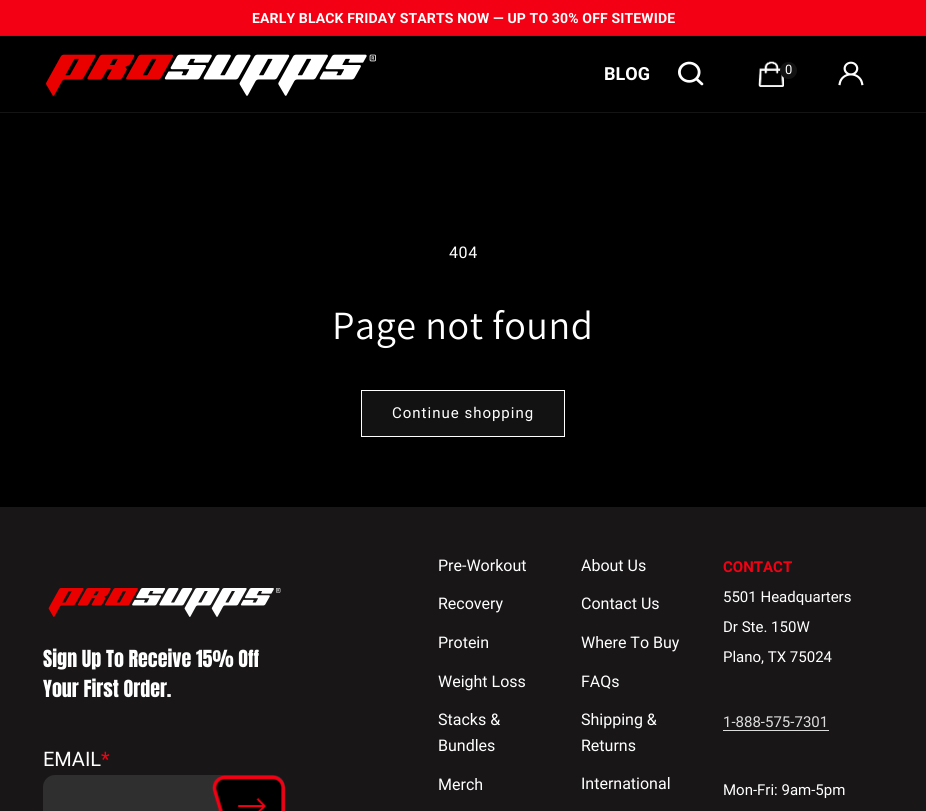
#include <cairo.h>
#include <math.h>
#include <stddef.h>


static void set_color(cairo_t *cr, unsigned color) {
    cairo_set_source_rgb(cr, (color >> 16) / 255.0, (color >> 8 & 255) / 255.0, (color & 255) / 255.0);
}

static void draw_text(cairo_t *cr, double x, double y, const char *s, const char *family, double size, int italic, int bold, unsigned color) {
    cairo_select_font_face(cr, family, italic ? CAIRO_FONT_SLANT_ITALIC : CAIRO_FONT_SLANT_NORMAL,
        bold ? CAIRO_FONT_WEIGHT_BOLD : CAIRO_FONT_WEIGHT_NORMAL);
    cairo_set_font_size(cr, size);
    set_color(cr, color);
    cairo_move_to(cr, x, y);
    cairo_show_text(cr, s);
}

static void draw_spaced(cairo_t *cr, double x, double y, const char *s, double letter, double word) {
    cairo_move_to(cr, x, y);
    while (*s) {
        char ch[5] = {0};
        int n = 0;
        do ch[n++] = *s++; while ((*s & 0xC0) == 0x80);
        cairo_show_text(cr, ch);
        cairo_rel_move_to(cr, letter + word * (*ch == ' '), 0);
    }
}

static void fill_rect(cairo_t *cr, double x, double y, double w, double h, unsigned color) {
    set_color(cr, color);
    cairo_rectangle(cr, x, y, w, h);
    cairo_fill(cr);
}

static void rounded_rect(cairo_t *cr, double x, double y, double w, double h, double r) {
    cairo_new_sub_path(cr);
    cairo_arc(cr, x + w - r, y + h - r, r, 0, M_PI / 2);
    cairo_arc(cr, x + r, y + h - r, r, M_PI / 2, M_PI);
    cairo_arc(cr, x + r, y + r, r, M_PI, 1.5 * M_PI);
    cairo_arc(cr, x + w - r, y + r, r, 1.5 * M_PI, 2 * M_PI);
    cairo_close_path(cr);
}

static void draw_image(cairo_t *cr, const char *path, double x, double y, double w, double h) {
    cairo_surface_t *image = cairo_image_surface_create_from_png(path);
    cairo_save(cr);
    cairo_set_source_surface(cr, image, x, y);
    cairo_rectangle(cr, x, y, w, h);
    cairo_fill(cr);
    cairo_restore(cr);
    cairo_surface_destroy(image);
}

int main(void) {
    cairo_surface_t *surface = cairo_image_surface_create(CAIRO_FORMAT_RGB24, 926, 811);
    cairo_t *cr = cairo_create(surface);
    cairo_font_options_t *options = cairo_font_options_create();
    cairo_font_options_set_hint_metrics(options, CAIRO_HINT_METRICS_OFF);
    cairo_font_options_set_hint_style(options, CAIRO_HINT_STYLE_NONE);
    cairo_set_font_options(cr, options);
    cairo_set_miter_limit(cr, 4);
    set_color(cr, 0x000000);
    cairo_paint(cr);
    fill_rect(cr, 0, 0, 926, 35, 0xF30014);
    fill_rect(cr, 0, 35, 926, 1, 0xE10114);
    cairo_select_font_face(cr, "Roboto", CAIRO_FONT_SLANT_NORMAL, CAIRO_FONT_WEIGHT_BOLD);
    cairo_set_font_size(cr, 14);
    set_color(cr, 0xFFFFFF);
    draw_spaced(cr, 252, 23, "EARLY BLACK FRIDAY STARTS NOW — UP TO 30% OFF SITEWIDE", 0.15, 0);
    fill_rect(cr, 0, 112, 926, 1, 0x141414);
    draw_image(cr, "assets/img1.png", 46, 54, 330, 42);
    draw_text(cr, 604, 80, "BLOG", "Roboto", 18, 0, 1, 0xFFFFFF);
    draw_image(cr, "assets/img2.png", 678, 61, 26, 25);
    draw_image(cr, "assets/img3.png", 758, 61, 26, 26);
    set_color(cr, 0x121212);
    cairo_arc(cr, 788.5, 70.5, 8.5, 0, 2 * M_PI);
    cairo_fill(cr);
    cairo_select_font_face(cr, "Roboto", CAIRO_FONT_SLANT_NORMAL, CAIRO_FONT_WEIGHT_NORMAL);
    cairo_set_font_size(cr, 13);
    set_color(cr, 0xFFFFFF);
    draw_spaced(cr, 785, 74, "0", 0.6, 0);
    draw_image(cr, "assets/img4.png", 838, 61, 26, 25);
    cairo_set_font_size(cr, 16);
    draw_spaced(cr, 449, 258, "404", 0.6, 0);
    cairo_select_font_face(cr, "Assistant", CAIRO_FONT_SLANT_NORMAL, CAIRO_FONT_WEIGHT_NORMAL);
    cairo_set_font_size(cr, 40);
    draw_spaced(cr, 332, 339, "Page not found", 0.6, 0);
    set_color(cr, 0x121212);
    cairo_rectangle(cr, 361.5, 390.5, 203, 46);
    cairo_fill_preserve(cr);
    set_color(cr, 0xFFFFFF);
    cairo_set_line_width(cr, 1);
    cairo_stroke(cr);
    cairo_select_font_face(cr, "Roboto", CAIRO_FONT_SLANT_NORMAL, CAIRO_FONT_WEIGHT_NORMAL);
    cairo_set_font_size(cr, 15);
    draw_spaced(cr, 392, 418, "Continue shopping", 1, 0);
    fill_rect(cr, 0, 507, 926, 304, 0x181616);
    draw_image(cr, "assets/img5.png", 48, 588, 233, 29);
    draw_text(cr, 43, 667, "Sign Up To Receive 15% Off", "Anton", 20, 0, 0, 0xFFFFFF);
    draw_text(cr, 43, 697, "Your First Order.", "Anton", 20, 0, 0, 0xFFFFFF);
    draw_text(cr, 43, 766, "EMAIL", "Roboto", 20, 0, 0, 0xFFFFFF);
    draw_text(cr, 101, 766, "*", "Roboto", 20, 0, 0, 0xF30014);
    set_color(cr, 0x2F2F2F);
    rounded_rect(cr, 43, 775, 242, 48, 12);
    cairo_fill(cr);
    draw_image(cr, "assets/img6.png", 212, 775, 73, 36);
    draw_text(cr, 438, 571, "Pre-Workout", "Roboto", 16, 0, 0, 0xFFFFFF);
    draw_text(cr, 438, 609, "Recovery", "Roboto", 16, 0, 0, 0xFFFFFF);
    draw_text(cr, 438, 648, "Protein", "Roboto", 16, 0, 0, 0xFFFFFF);
    draw_text(cr, 438, 687, "Weight Loss", "Roboto", 16, 0, 0, 0xFFFFFF);
    draw_text(cr, 438, 725, "Stacks &", "Roboto", 16, 0, 0, 0xFFFFFF);
    draw_text(cr, 438, 751, "Bundles", "Roboto", 16, 0, 0, 0xFFFFFF);
    draw_text(cr, 438, 790, "Merch", "Roboto", 16, 0, 0, 0xFFFFFF);
    draw_text(cr, 581, 571, "About Us", "Roboto", 16, 0, 0, 0xFFFFFF);
    draw_text(cr, 581, 609, "Contact Us", "Roboto", 16, 0, 0, 0xFFFFFF);
    draw_text(cr, 581, 648, "Where To Buy", "Roboto", 16, 0, 0, 0xFFFFFF);
    draw_text(cr, 581, 687, "FAQs", "Roboto", 16, 0, 0, 0xFFFFFF);
    draw_text(cr, 581, 725, "Shipping &", "Roboto", 16, 0, 0, 0xFFFFFF);
    draw_text(cr, 581, 751, "Returns", "Roboto", 16, 0, 0, 0xFFFFFF);
    draw_text(cr, 581, 789, "International", "Roboto", 16, 0, 0, 0xFFFFFF);
    draw_text(cr, 723, 572, "CONTACT", "Roboto", 15, 0, 1, 0xF30014);
    draw_text(cr, 723, 602, "5501 Headquarters", "Roboto", 15, 0, 0, 0xFFFFFF);
    draw_text(cr, 723, 632, "Dr Ste. 150W", "Roboto", 15, 0, 0, 0xFFFFFF);
    draw_text(cr, 723, 662, "Plano, TX 75024", "Roboto", 15, 0, 0, 0xFFFFFF);
    draw_text(cr, 723, 727, "1-888-575-7301", "Roboto", 15, 0, 0, 0xDCDCDC);
    fill_rect(cr, 723, 730, 106, 1, 0xDCDCDC);
    draw_text(cr, 723, 795, "Mon-Fri: 9am-5pm", "Roboto", 15, 0, 0, 0xFFFFFF);
    cairo_surface_write_to_png(surface, "output.png");
    cairo_font_options_destroy(options);
    cairo_destroy(cr);
    cairo_surface_destroy(surface);
    return 0;
}
